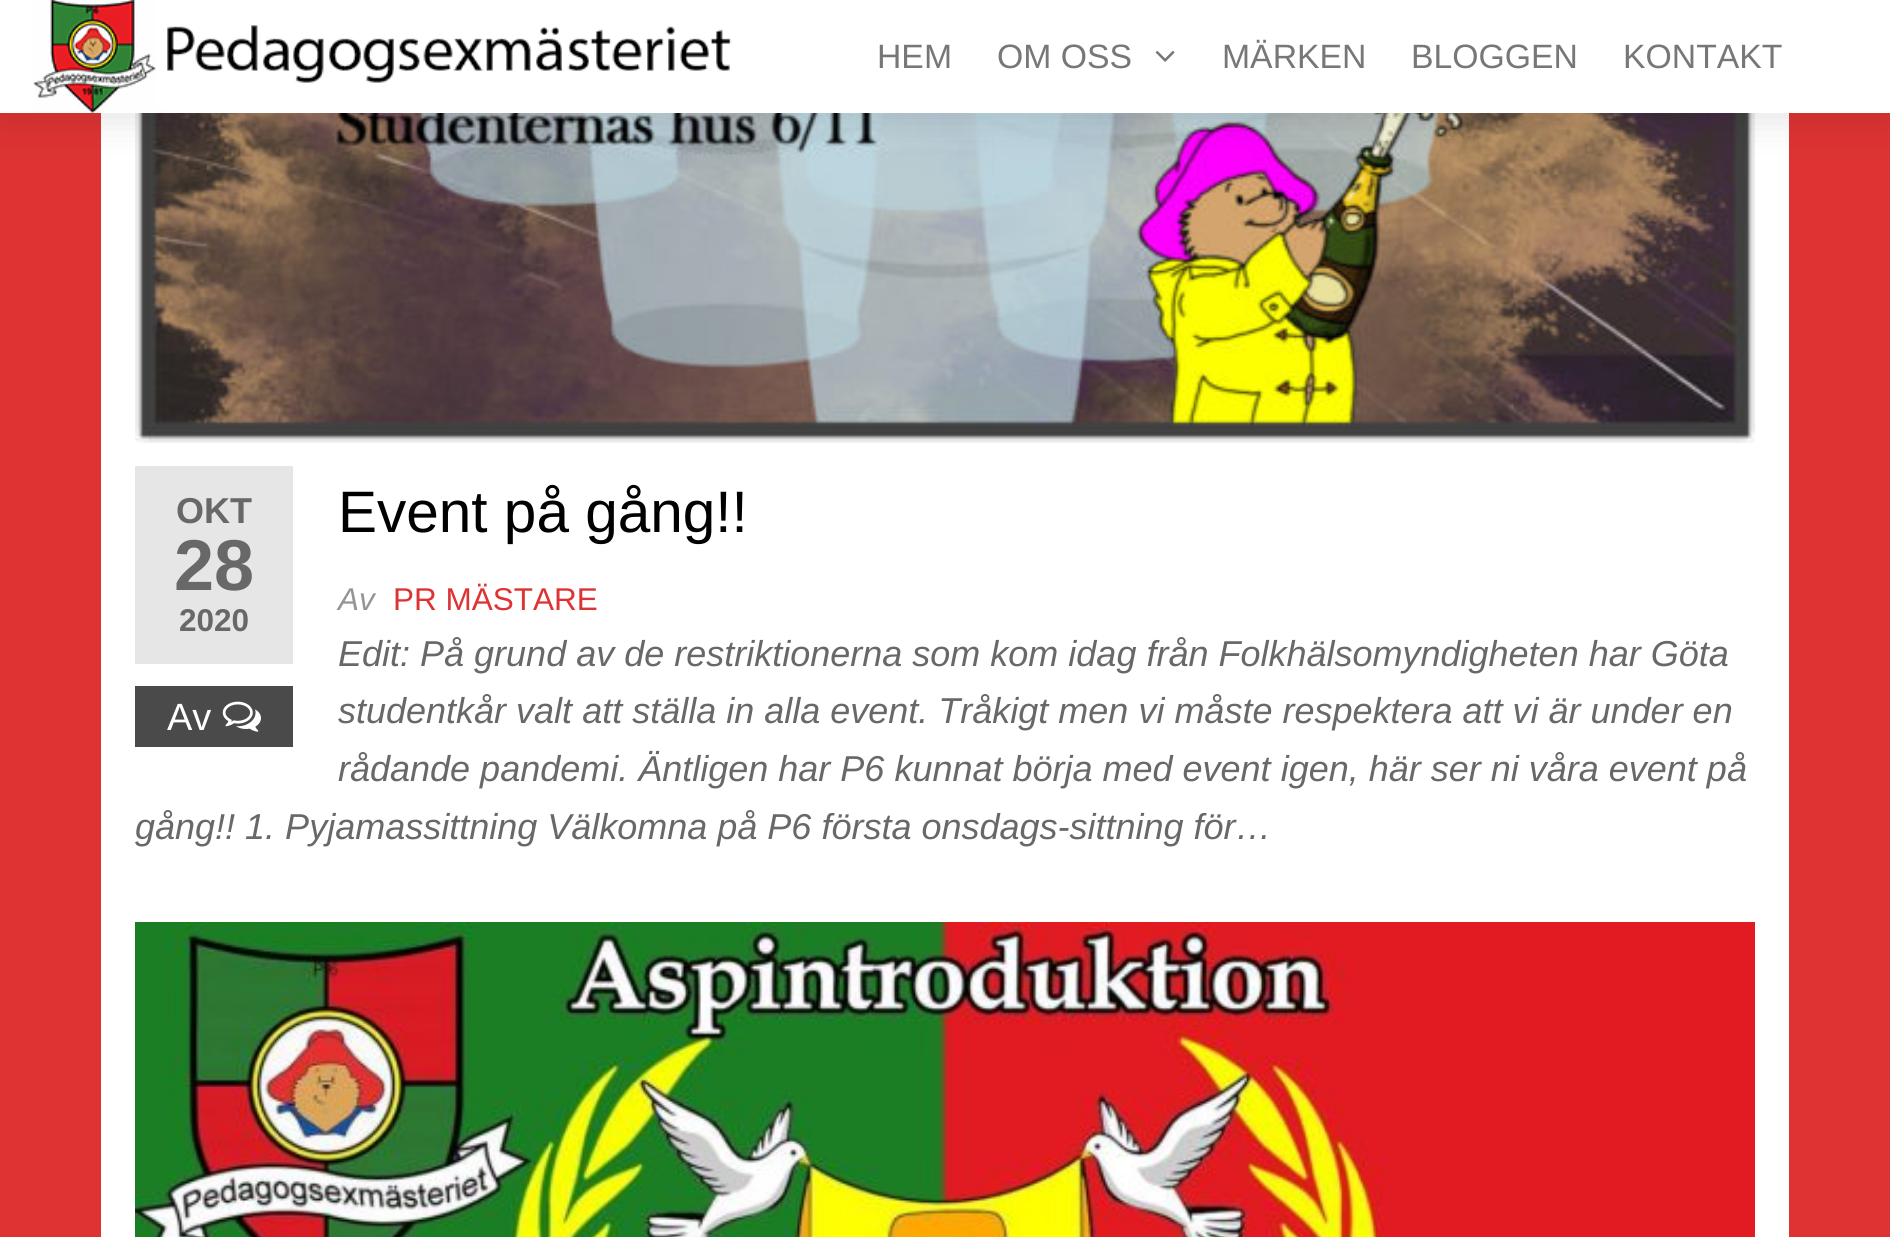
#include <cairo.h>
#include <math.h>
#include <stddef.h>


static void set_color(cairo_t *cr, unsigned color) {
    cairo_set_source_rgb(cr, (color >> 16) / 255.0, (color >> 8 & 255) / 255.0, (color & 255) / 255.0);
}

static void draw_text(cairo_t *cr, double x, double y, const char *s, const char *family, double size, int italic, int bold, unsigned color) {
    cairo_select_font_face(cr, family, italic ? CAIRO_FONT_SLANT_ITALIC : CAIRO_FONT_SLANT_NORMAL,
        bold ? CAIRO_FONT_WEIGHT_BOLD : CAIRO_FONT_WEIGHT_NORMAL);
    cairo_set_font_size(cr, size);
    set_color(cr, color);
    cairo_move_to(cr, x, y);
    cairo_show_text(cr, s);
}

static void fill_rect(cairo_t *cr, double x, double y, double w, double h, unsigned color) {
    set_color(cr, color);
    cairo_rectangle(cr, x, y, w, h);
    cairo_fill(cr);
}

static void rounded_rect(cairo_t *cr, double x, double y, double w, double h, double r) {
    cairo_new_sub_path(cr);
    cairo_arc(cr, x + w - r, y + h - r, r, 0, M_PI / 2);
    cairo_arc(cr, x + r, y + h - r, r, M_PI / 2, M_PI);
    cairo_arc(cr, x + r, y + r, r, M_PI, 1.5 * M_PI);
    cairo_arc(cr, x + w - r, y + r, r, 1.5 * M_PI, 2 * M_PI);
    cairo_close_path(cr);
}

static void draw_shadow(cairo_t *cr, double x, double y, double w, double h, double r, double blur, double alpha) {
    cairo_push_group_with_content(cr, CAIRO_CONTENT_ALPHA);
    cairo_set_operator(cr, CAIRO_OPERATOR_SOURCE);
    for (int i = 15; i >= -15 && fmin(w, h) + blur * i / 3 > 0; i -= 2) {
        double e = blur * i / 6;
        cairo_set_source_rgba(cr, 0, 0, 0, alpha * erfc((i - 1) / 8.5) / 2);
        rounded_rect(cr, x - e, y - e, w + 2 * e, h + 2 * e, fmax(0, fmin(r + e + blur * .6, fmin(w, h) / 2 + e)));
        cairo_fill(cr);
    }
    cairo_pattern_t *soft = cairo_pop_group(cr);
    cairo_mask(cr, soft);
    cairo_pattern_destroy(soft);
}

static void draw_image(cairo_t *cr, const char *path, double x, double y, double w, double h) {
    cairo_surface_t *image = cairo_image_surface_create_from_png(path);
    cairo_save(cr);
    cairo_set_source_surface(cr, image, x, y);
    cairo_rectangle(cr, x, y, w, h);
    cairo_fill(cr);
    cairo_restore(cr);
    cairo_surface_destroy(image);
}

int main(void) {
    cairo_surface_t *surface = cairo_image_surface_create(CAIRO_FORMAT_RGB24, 1890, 1237);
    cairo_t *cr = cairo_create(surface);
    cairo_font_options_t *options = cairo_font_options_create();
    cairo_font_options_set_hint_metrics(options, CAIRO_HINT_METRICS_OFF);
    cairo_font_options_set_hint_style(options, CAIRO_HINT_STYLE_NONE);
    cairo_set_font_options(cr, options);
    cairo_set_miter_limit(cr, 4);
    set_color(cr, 0xDD3333);
    cairo_paint(cr);
    fill_rect(cr, 101, 113, 1688, 1124, 0xFFFFFF);
    draw_image(cr, "assets/img3.png", 135, 113, 1620, 330);
    set_color(cr, 0x000000);
    draw_shadow(cr, 0, 9, 1890, 113, 0, 18, 0.1);
    fill_rect(cr, 0, 0, 1890, 113, 0xFFFFFF);
    draw_image(cr, "assets/img1.png", 33, 0, 699, 113);
    draw_text(cr, 877, 68, "HEM", "Liberation Sans", 33.75, 0, 0, 0x777777);
    draw_text(cr, 997, 68, "OM OSS", "Liberation Sans", 33.75, 0, 0, 0x777777);
    draw_image(cr, "assets/img2.png", 1155, 50, 20, 12);
    draw_text(cr, 1222, 68, "MÄRKEN", "Liberation Sans", 33.75, 0, 0, 0x777777);
    draw_text(cr, 1411, 68, "BLOGGEN", "Liberation Sans", 33.75, 0, 0, 0x777777);
    draw_text(cr, 1623, 68, "KONTAKT", "Liberation Sans", 33.75, 0, 0, 0x777777);
    fill_rect(cr, 135, 466, 158, 198, 0xE6E6E6);
    draw_text(cr, 176, 523, "OKT", "Liberation Sans", 36, 0, 1, 0x686868);
    draw_text(cr, 174, 590, "28", "Liberation Sans", 72, 0, 1, 0x686868);
    draw_text(cr, 179, 631, "2020", "Liberation Sans", 31.5, 0, 1, 0x686868);
    fill_rect(cr, 135, 686, 158, 61, 0x4A4A4A);
    draw_text(cr, 167, 730, "Av", "Liberation Sans", 38, 0, 0, 0xFFFFFF);
    draw_image(cr, "assets/img4.png", 222, 701, 39, 31);
    draw_text(cr, 338, 532, "Event på gång!!", "Liberation Sans", 58.5, 0, 0, 0x000000);
    draw_text(cr, 338, 610, "Av", "Liberation Sans", 31.5, 1, 0, 0x959595);
    draw_text(cr, 393, 610, "PR MÄSTARE", "Liberation Sans", 31.5, 0, 0, 0xDD3333);
    draw_text(cr, 338, 666, "Edit: På grund av de restriktionerna som kom idag från Folkhälsomyndigheten har Göta", "Liberation Sans", 36, 1, 0, 0x686868);
    draw_text(cr, 338, 723, "studentkår valt att ställa in alla event. Tråkigt men vi måste respektera att vi är under en", "Liberation Sans", 36, 1, 0, 0x686868);
    draw_text(cr, 338, 781, "rådande pandemi. Äntligen har P6 kunnat börja med event igen, här ser ni våra event på", "Liberation Sans", 36, 1, 0, 0x686868);
    draw_text(cr, 135, 839, "gång!! 1. Pyjamassittning Välkomna på P6 första onsdags-sittning för…", "Liberation Sans", 36, 1, 0, 0x686868);
    draw_image(cr, "assets/img5.png", 135, 922, 1620, 315);
    cairo_surface_write_to_png(surface, "output.png");
    cairo_font_options_destroy(options);
    cairo_destroy(cr);
    cairo_surface_destroy(surface);
    return 0;
}
